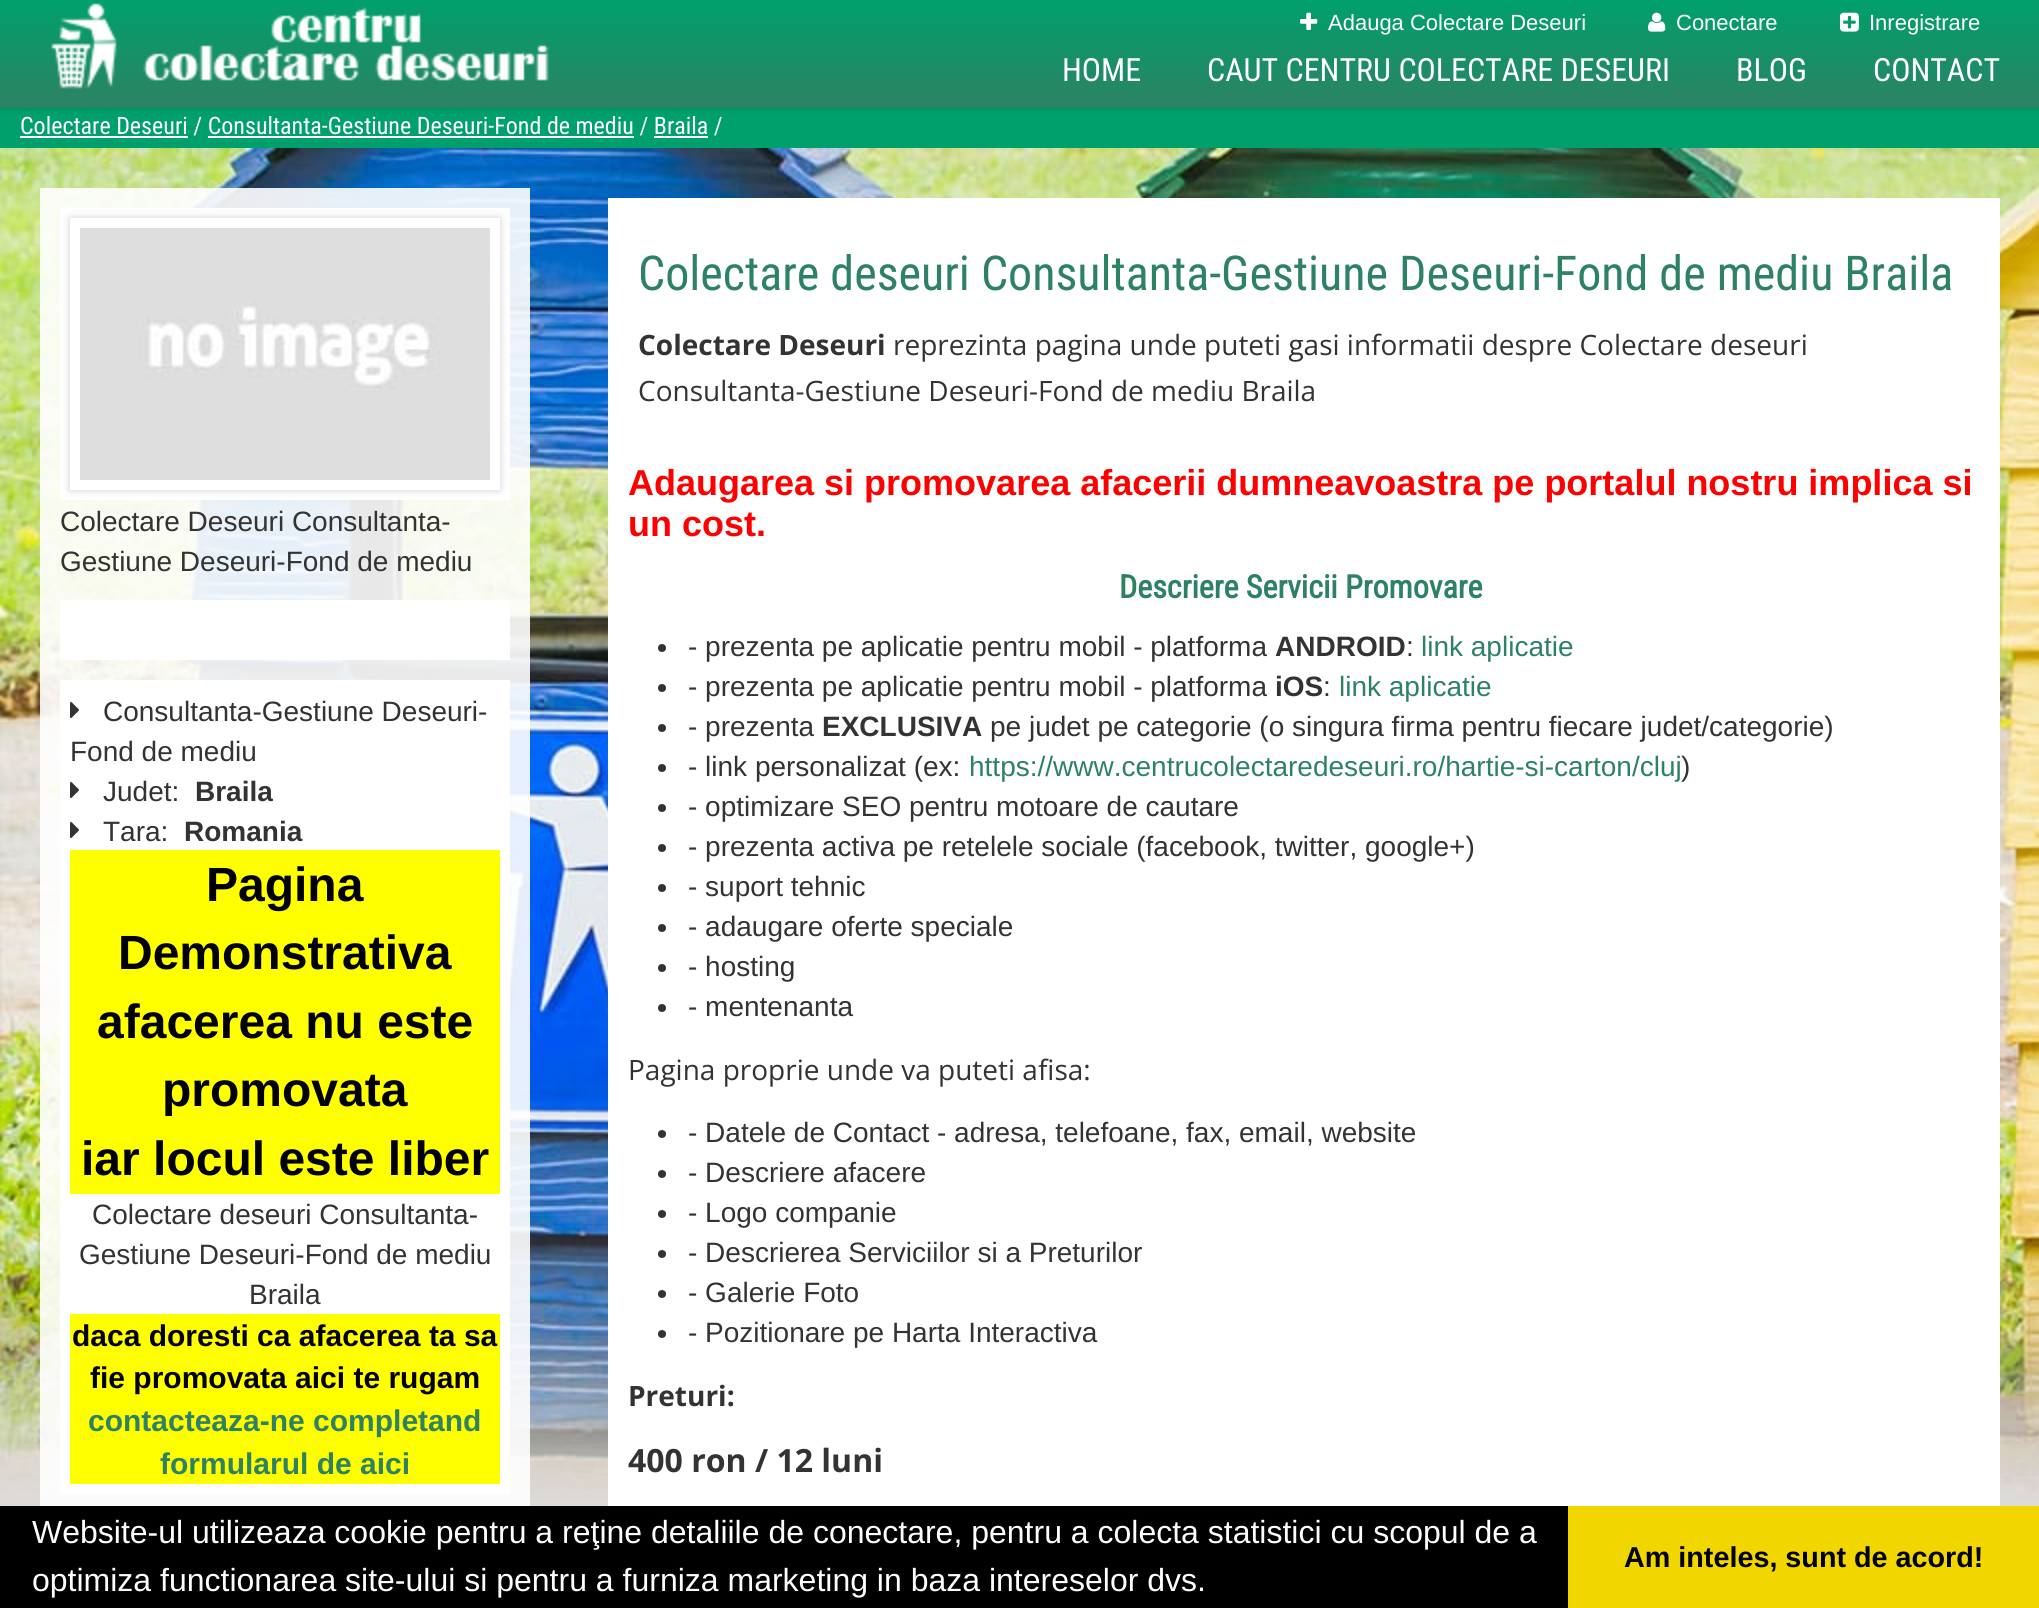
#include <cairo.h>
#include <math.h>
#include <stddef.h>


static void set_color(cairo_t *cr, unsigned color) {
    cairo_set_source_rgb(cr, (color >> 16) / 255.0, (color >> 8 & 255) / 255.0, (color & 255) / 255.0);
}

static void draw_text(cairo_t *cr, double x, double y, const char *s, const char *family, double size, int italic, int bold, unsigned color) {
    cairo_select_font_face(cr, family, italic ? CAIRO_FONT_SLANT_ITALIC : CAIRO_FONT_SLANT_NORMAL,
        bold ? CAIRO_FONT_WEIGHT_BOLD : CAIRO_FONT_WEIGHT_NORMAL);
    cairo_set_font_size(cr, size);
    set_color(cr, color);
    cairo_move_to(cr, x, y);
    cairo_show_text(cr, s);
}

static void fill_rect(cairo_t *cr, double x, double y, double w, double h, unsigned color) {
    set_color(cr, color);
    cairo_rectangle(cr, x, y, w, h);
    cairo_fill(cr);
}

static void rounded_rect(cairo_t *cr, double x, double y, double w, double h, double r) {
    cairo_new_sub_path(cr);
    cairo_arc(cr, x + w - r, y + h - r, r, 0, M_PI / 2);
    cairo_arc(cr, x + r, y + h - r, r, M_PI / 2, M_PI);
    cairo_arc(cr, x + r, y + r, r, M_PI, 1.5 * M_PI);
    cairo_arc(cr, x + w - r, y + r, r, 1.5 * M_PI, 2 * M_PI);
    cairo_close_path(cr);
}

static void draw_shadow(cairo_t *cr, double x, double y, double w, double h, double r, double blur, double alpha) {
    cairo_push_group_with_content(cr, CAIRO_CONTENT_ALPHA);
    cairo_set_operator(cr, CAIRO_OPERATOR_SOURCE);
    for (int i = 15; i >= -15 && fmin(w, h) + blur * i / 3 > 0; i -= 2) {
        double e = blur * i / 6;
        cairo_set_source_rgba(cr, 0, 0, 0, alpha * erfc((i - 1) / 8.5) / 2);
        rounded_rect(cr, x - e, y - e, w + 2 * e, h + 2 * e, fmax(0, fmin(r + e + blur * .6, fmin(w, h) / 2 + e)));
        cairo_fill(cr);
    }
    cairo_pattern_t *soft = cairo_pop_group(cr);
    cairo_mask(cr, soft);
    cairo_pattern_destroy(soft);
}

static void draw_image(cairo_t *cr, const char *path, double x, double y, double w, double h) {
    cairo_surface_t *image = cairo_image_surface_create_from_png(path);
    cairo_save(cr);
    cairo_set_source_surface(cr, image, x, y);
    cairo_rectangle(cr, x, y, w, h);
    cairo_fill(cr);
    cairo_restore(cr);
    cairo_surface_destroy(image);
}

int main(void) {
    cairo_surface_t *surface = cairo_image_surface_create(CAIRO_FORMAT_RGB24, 2039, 1608);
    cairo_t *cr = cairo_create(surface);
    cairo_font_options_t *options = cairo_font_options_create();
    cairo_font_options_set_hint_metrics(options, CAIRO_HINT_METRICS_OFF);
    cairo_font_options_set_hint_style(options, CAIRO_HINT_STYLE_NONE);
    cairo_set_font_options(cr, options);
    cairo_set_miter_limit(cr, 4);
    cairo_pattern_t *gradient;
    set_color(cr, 0xDCDBD7);
    cairo_paint(cr);
    fill_rect(cr, 0, 108, 2039, 40, 0x00A06C);
    set_color(cr, 0x000000);
    draw_shadow(cr, 0, 2, 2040, 108, 0, 3, 0.1);
    gradient = cairo_pattern_create_linear(1020, 0, 1020, 108);
    cairo_pattern_add_color_stop_rgba(gradient, 0, 0, 0.627, 0.424, 1);
    cairo_pattern_add_color_stop_rgba(gradient, 1, 0.176, 0.51, 0.388, 1);
    cairo_set_source(cr, gradient);
    cairo_pattern_destroy(gradient);
    cairo_rectangle(cr, 0, 0, 2039, 108);
    cairo_fill(cr);
    draw_image(cr, "assets/img1.png", 51, 3, 498, 86);
    draw_image(cr, "assets/img2.png", 1300, 12, 18, 18);
    draw_text(cr, 1328, 30, "Adauga Colectare Deseuri", "Liberation Sans", 22, 0, 0, 0xFFFFFF);
    draw_image(cr, "assets/img3.png", 1648, 12, 18, 20);
    draw_text(cr, 1676, 30, "Conectare", "Liberation Sans", 22, 0, 0, 0xFFFFFF);
    draw_image(cr, "assets/img4.png", 1840, 12, 19, 20);
    draw_text(cr, 1869, 30, "Inregistrare", "Liberation Sans", 22, 0, 0, 0xFFFFFF);
    draw_text(cr, 1062, 81, "HOME", "Roboto Condensed", 32, 0, 0, 0xFFFFFF);
    draw_text(cr, 1207, 81, "CAUT CENTRU COLECTARE DESEURI", "Roboto Condensed", 32, 0, 0, 0xFFFFFF);
    draw_text(cr, 1736, 81, "BLOG", "Roboto Condensed", 32, 0, 0, 0xFFFFFF);
    draw_text(cr, 1873, 81, "CONTACT", "Roboto Condensed", 32, 0, 0, 0xFFFFFF);
    draw_text(cr, 20, 134, "Colectare Deseuri / Consultanta-Gestiune Deseuri-Fond de mediu / Braila /", "Roboto Condensed", 24, 0, 0, 0xFFFFFF);
    fill_rect(cr, 20, 136, 168, 2, 0xFFFFFF);
    fill_rect(cr, 208, 136, 426, 2, 0xFFFFFF);
    fill_rect(cr, 654, 136, 54, 2, 0xFFFFFF);
    draw_image(cr, "assets/img5.png", 0, 148, 2039, 1352);
    cairo_set_source_rgba(cr, 1, 1, 1, 0.9);
    cairo_rectangle(cr, 40, 188, 490, 1318);
    cairo_fill(cr);
    fill_rect(cr, 60, 208, 450, 292, 0xFFFFFF);
    cairo_save(cr);
    cairo_set_fill_rule(cr, CAIRO_FILL_RULE_EVEN_ODD);
    cairo_new_path(cr);
    cairo_move_to(cr, 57, 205);
    cairo_line_to(cr, 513, 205);
    cairo_line_to(cr, 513, 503);
    cairo_line_to(cr, 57, 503);
    cairo_close_path(cr);
    cairo_move_to(cr, 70, 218);
    cairo_line_to(cr, 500, 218);
    cairo_line_to(cr, 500, 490);
    cairo_line_to(cr, 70, 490);
    cairo_close_path(cr);
    cairo_clip(cr);
    set_color(cr, 0x000000);
    draw_shadow(cr, 70, 218, 430, 272, 0, 4, 0.19);
    cairo_restore(cr);
    draw_image(cr, "assets/img6.png", 80, 228, 410, 252);
    draw_text(cr, 60, 531, "Colectare Deseuri Consultanta-", "Liberation Sans", 28, 0, 0, 0x333333);
    draw_text(cr, 60, 571, "Gestiune Deseuri-Fond de mediu", "Liberation Sans", 28, 0, 0, 0x333333);
    fill_rect(cr, 60, 600, 450, 60, 0xFFFFFF);
    fill_rect(cr, 60, 680, 450, 814, 0xFFFFFF);
    draw_image(cr, "assets/img7.png", 70, 702, 9, 16);
    draw_text(cr, 103, 721, "Consultanta-Gestiune Deseuri-", "Liberation Sans", 28, 0, 0, 0x333333);
    draw_text(cr, 70, 761, "Fond de mediu", "Liberation Sans", 28, 0, 0, 0x333333);
    draw_image(cr, "assets/img7.png", 70, 782, 9, 16);
    draw_text(cr, 103, 801, "Judet:", "Liberation Sans", 28, 0, 0, 0x333333);
    draw_text(cr, 195, 801, "Braila", "Liberation Sans", 28, 0, 1, 0x333333);
    draw_image(cr, "assets/img7.png", 70, 822, 9, 16);
    draw_text(cr, 103, 841, "Tara:", "Liberation Sans", 28, 0, 0, 0x333333);
    draw_text(cr, 184, 841, "Romania", "Liberation Sans", 28, 0, 1, 0x333333);
    fill_rect(cr, 70, 850, 430, 344, 0xFFFF00);
    draw_text(cr, 206, 901, "Pagina", "Liberation Sans", 48, 0, 1, 0x000000);
    draw_text(cr, 118, 969, "Demonstrativa", "Liberation Sans", 48, 0, 1, 0x000000);
    draw_text(cr, 97, 1038, "afacerea nu este", "Liberation Sans", 48, 0, 1, 0x000000);
    draw_text(cr, 162, 1106, "promovata", "Liberation Sans", 48, 0, 1, 0x000000);
    draw_text(cr, 81, 1175, "iar locul este liber", "Liberation Sans", 48, 0, 1, 0x000000);
    draw_text(cr, 92, 1224, "Colectare deseuri Consultanta-", "Liberation Sans", 28, 0, 0, 0x333333);
    draw_text(cr, 79, 1264, "Gestiune Deseuri-Fond de mediu", "Liberation Sans", 28, 0, 0, 0x333333);
    draw_text(cr, 249, 1304, "Braila", "Liberation Sans", 28, 0, 0, 0x333333);
    fill_rect(cr, 70, 1314, 430, 170, 0xFFFF00);
    draw_text(cr, 72, 1346, "daca doresti ca afacerea ta sa", "Liberation Sans", 30, 0, 1, 0x000000);
    draw_text(cr, 90, 1388, "fie promovata aici te rugam", "Liberation Sans", 30, 0, 1, 0x000000);
    draw_text(cr, 88, 1431, "contacteaza-ne completand", "Liberation Sans", 30, 0, 1, 0x2D8263);
    draw_text(cr, 160, 1474, "formularul de aici", "Liberation Sans", 30, 0, 1, 0x2D8263);
    fill_rect(cr, 608, 198, 1392, 1308, 0xFFFFFF);
    draw_text(cr, 638, 290, "Colectare deseuri Consultanta-Gestiune Deseuri-Fond de mediu Braila", "Roboto Condensed", 48, 0, 0, 0x2D8263);
    draw_text(cr, 638, 355, "Colectare Deseuri", "Open Sans", 28, 0, 1, 0x333333);
    draw_text(cr, 893, 355, "reprezinta pagina unde puteti gasi informatii despre Colectare deseuri", "Open Sans", 28, 0, 0, 0x333333);
    draw_text(cr, 638, 401, "Consultanta-Gestiune Deseuri-Fond de mediu Braila", "Open Sans", 28, 0, 0, 0x333333);
    draw_text(cr, 628, 495, "Adaugarea si promovarea afacerii dumneavoastra pe portalul nostru implica si", "Liberation Sans", 36, 0, 1, 0xFF0000);
    draw_text(cr, 628, 536, "un cost.", "Liberation Sans", 36, 0, 1, 0xFF0000);
    draw_text(cr, 1119, 598, "Descriere Servicii Promovare", "Roboto Condensed", 32, 0, 1, 0x2D8263);
    set_color(cr, 0x333333);
    cairo_new_path(cr);
    cairo_arc(cr, 662, 648, 4, 0, 2 * M_PI);
    cairo_fill(cr);
    draw_text(cr, 688, 656, "- prezenta pe aplicatie pentru mobil - platforma", "Liberation Sans", 28, 0, 0, 0x333333);
    draw_text(cr, 1275, 656, "ANDROID", "Liberation Sans", 28, 0, 1, 0x333333);
    draw_text(cr, 1406, 656, ":", "Liberation Sans", 28, 0, 0, 0x333333);
    draw_text(cr, 1421, 656, "link aplicatie", "Liberation Sans", 28, 0, 0, 0x2D8263);
    set_color(cr, 0x333333);
    cairo_new_path(cr);
    cairo_arc(cr, 662, 688, 4, 0, 2 * M_PI);
    cairo_fill(cr);
    draw_text(cr, 688, 696, "- prezenta pe aplicatie pentru mobil - platforma", "Liberation Sans", 28, 0, 0, 0x333333);
    draw_text(cr, 1275, 696, "iOS", "Liberation Sans", 28, 0, 1, 0x333333);
    draw_text(cr, 1323, 696, ":", "Liberation Sans", 28, 0, 0, 0x333333);
    draw_text(cr, 1339, 696, "link aplicatie", "Liberation Sans", 28, 0, 0, 0x2D8263);
    set_color(cr, 0x333333);
    cairo_new_path(cr);
    cairo_arc(cr, 662, 728, 4, 0, 2 * M_PI);
    cairo_fill(cr);
    draw_text(cr, 688, 736, "- prezenta", "Liberation Sans", 28, 0, 0, 0x333333);
    draw_text(cr, 822, 736, "EXCLUSIVA", "Liberation Sans", 28, 0, 1, 0x333333);
    draw_text(cr, 990, 736, "pe judet pe categorie (o singura firma pentru fiecare judet/categorie)", "Liberation Sans", 28, 0, 0, 0x333333);
    cairo_new_path(cr);
    cairo_arc(cr, 662, 768, 4, 0, 2 * M_PI);
    cairo_fill(cr);
    draw_text(cr, 688, 776, "- link personalizat (ex:", "Liberation Sans", 28, 0, 0, 0x333333);
    draw_text(cr, 969, 776, "https://www.centrucolectaredeseuri.ro/hartie-si-carton/cluj", "Liberation Sans", 28, 0, 0, 0x2D8263);
    draw_text(cr, 1681, 776, ")", "Liberation Sans", 28, 0, 0, 0x333333);
    cairo_new_path(cr);
    cairo_arc(cr, 662, 808, 4, 0, 2 * M_PI);
    cairo_fill(cr);
    draw_text(cr, 688, 816, "- optimizare SEO pentru motoare de cautare", "Liberation Sans", 28, 0, 0, 0x333333);
    cairo_new_path(cr);
    cairo_arc(cr, 662, 848, 4, 0, 2 * M_PI);
    cairo_fill(cr);
    draw_text(cr, 688, 856, "- prezenta activa pe retelele sociale (facebook, twitter, google+)", "Liberation Sans", 28, 0, 0, 0x333333);
    cairo_new_path(cr);
    cairo_arc(cr, 662, 888, 4, 0, 2 * M_PI);
    cairo_fill(cr);
    draw_text(cr, 688, 896, "- suport tehnic", "Liberation Sans", 28, 0, 0, 0x333333);
    cairo_new_path(cr);
    cairo_arc(cr, 662, 928, 4, 0, 2 * M_PI);
    cairo_fill(cr);
    draw_text(cr, 688, 936, "- adaugare oferte speciale", "Liberation Sans", 28, 0, 0, 0x333333);
    cairo_new_path(cr);
    cairo_arc(cr, 662, 968, 4, 0, 2 * M_PI);
    cairo_fill(cr);
    draw_text(cr, 688, 976, "- hosting", "Liberation Sans", 28, 0, 0, 0x333333);
    cairo_new_path(cr);
    cairo_arc(cr, 662, 1008, 4, 0, 2 * M_PI);
    cairo_fill(cr);
    draw_text(cr, 688, 1016, "- mentenanta", "Liberation Sans", 28, 0, 0, 0x333333);
    draw_text(cr, 628, 1080, "Pagina proprie unde va puteti afisa:", "Open Sans", 28, 0, 0, 0x333333);
    cairo_new_path(cr);
    cairo_arc(cr, 662, 1134, 4, 0, 2 * M_PI);
    cairo_fill(cr);
    draw_text(cr, 688, 1142, "- Datele de Contact - adresa, telefoane, fax, email, website", "Liberation Sans", 28, 0, 0, 0x333333);
    cairo_new_path(cr);
    cairo_arc(cr, 662, 1174, 4, 0, 2 * M_PI);
    cairo_fill(cr);
    draw_text(cr, 688, 1182, "- Descriere afacere", "Liberation Sans", 28, 0, 0, 0x333333);
    cairo_new_path(cr);
    cairo_arc(cr, 662, 1214, 4, 0, 2 * M_PI);
    cairo_fill(cr);
    draw_text(cr, 688, 1222, "- Logo companie", "Liberation Sans", 28, 0, 0, 0x333333);
    cairo_new_path(cr);
    cairo_arc(cr, 662, 1254, 4, 0, 2 * M_PI);
    cairo_fill(cr);
    draw_text(cr, 688, 1262, "- Descrierea Serviciilor si a Preturilor", "Liberation Sans", 28, 0, 0, 0x333333);
    cairo_new_path(cr);
    cairo_arc(cr, 662, 1294, 4, 0, 2 * M_PI);
    cairo_fill(cr);
    draw_text(cr, 688, 1302, "- Galerie Foto", "Liberation Sans", 28, 0, 0, 0x333333);
    cairo_new_path(cr);
    cairo_arc(cr, 662, 1334, 4, 0, 2 * M_PI);
    cairo_fill(cr);
    draw_text(cr, 688, 1342, "- Pozitionare pe Harta Interactiva", "Liberation Sans", 28, 0, 0, 0x333333);
    draw_text(cr, 628, 1406, "Preturi:", "Open Sans", 28, 0, 1, 0x333333);
    draw_text(cr, 628, 1472, "400 ron / 12 luni", "Open Sans", 32, 0, 1, 0x333333);
    fill_rect(cr, 0, 1506, 1568, 102, 0x000000);
    draw_text(cr, 32, 1543, "Website-ul utilizeaza cookie pentru a reţine detaliile de conectare, pentru a colecta statistici cu scopul de a", "Liberation Sans", 32, 0, 0, 0xFFFFFF);
    draw_text(cr, 32, 1591, "optimiza functionarea site-ului si pentru a furniza marketing in baza intereselor dvs.", "Liberation Sans", 32, 0, 0, 0xFFFFFF);
    fill_rect(cr, 1568, 1506, 471, 102, 0xF1D600);
    draw_text(cr, 1624, 1567, "Am inteles, sunt de acord!", "Liberation Sans", 28.75, 0, 1, 0x000000);
    cairo_surface_write_to_png(surface, "output.png");
    cairo_font_options_destroy(options);
    cairo_destroy(cr);
    cairo_surface_destroy(surface);
    return 0;
}
